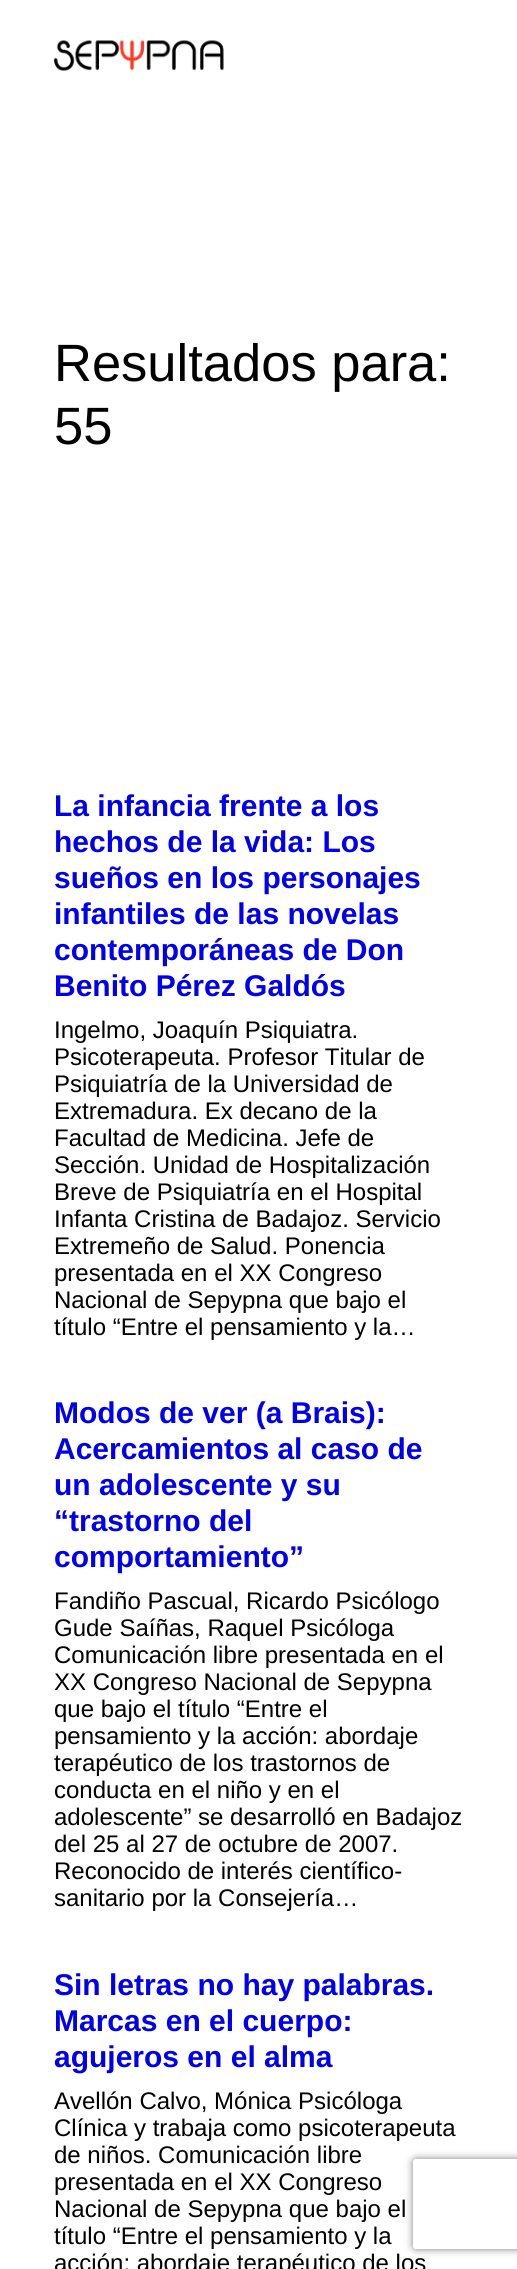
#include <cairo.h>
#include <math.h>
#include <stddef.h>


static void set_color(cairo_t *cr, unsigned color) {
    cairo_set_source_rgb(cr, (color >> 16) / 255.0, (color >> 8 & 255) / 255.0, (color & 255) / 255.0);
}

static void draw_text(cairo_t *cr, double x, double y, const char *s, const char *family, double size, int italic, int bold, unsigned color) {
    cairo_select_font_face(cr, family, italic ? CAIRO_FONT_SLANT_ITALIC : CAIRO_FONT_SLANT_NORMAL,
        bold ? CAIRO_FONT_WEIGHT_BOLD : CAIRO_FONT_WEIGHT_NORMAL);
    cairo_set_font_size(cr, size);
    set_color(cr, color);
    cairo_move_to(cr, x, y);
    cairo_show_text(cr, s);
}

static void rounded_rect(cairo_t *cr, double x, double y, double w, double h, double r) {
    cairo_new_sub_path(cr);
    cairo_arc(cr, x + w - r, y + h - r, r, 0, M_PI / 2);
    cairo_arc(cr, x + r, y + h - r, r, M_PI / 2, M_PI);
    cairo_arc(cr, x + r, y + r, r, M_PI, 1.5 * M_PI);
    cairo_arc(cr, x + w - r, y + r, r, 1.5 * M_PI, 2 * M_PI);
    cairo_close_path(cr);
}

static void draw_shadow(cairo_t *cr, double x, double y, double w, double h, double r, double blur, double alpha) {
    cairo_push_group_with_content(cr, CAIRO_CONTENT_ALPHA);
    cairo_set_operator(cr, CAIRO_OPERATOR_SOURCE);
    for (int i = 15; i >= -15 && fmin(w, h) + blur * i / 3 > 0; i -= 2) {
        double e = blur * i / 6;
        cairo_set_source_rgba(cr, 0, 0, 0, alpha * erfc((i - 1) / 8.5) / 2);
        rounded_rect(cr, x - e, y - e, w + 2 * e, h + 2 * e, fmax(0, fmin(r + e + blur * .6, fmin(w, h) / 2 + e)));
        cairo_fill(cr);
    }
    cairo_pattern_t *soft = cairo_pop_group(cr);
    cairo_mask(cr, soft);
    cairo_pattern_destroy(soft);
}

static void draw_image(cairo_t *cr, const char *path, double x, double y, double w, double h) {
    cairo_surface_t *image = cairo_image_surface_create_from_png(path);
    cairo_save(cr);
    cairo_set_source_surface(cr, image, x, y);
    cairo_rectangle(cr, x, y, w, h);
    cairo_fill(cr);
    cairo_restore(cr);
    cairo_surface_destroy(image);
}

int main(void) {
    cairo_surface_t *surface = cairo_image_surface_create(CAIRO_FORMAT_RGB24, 517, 2269);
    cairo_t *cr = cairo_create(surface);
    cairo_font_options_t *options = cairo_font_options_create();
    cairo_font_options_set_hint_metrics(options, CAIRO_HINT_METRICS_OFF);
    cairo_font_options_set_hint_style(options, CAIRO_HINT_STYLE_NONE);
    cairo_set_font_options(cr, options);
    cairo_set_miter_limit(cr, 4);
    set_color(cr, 0xFFFFFF);
    cairo_paint(cr);
    draw_image(cr, "assets/img1.png", 54, 40, 170, 31);
    draw_text(cr, 54, 381, "Resultados para:", "Liberation Sans", 52.5, 0, 0, 0x000000);
    draw_text(cr, 54, 444, "55", "Liberation Sans", 52.5, 0, 0, 0x000000);
    draw_text(cr, 54, 816, "La infancia frente a los", "Liberation Sans", 30, 0, 1, 0x0000EE);
    draw_text(cr, 54, 852, "hechos de la vida: Los", "Liberation Sans", 30, 0, 1, 0x0000EE);
    draw_text(cr, 54, 888, "sueños en los personajes", "Liberation Sans", 30, 0, 1, 0x0000EE);
    draw_text(cr, 54, 924, "infantiles de las novelas", "Liberation Sans", 30, 0, 1, 0x0000EE);
    draw_text(cr, 54, 960, "contemporáneas de Don", "Liberation Sans", 30, 0, 1, 0x0000EE);
    draw_text(cr, 54, 996, "Benito Pérez Galdós", "Liberation Sans", 30, 0, 1, 0x0000EE);
    draw_text(cr, 54, 1038, "Ingelmo, Joaquín Psiquiatra.", "Liberation Sans", 24, 0, 0, 0x000000);
    draw_text(cr, 54, 1065, "Psicoterapeuta. Profesor Titular de", "Liberation Sans", 24, 0, 0, 0x000000);
    draw_text(cr, 54, 1092, "Psiquiatría de la Universidad de", "Liberation Sans", 24, 0, 0, 0x000000);
    draw_text(cr, 54, 1119, "Extremadura. Ex decano de la", "Liberation Sans", 24, 0, 0, 0x000000);
    draw_text(cr, 54, 1146, "Facultad de Medicina. Jefe de", "Liberation Sans", 24, 0, 0, 0x000000);
    draw_text(cr, 54, 1173, "Sección. Unidad de Hospitalización", "Liberation Sans", 24, 0, 0, 0x000000);
    draw_text(cr, 54, 1200, "Breve de Psiquiatría en el Hospital", "Liberation Sans", 24, 0, 0, 0x000000);
    draw_text(cr, 54, 1227, "Infanta Cristina de Badajoz. Servicio", "Liberation Sans", 24, 0, 0, 0x000000);
    draw_text(cr, 54, 1254, "Extremeño de Salud. Ponencia", "Liberation Sans", 24, 0, 0, 0x000000);
    draw_text(cr, 54, 1281, "presentada en el XX Congreso", "Liberation Sans", 24, 0, 0, 0x000000);
    draw_text(cr, 54, 1308, "Nacional de Sepypna que bajo el", "Liberation Sans", 24, 0, 0, 0x000000);
    draw_text(cr, 54, 1335, "título “Entre el pensamiento y la…", "Liberation Sans", 24, 0, 0, 0x000000);
    draw_text(cr, 54, 1423, "Modos de ver (a Brais):", "Liberation Sans", 30, 0, 1, 0x0000EE);
    draw_text(cr, 54, 1459, "Acercamientos al caso de", "Liberation Sans", 30, 0, 1, 0x0000EE);
    draw_text(cr, 54, 1495, "un adolescente y su", "Liberation Sans", 30, 0, 1, 0x0000EE);
    draw_text(cr, 54, 1531, "“trastorno del", "Liberation Sans", 30, 0, 1, 0x0000EE);
    draw_text(cr, 54, 1567, "comportamiento”", "Liberation Sans", 30, 0, 1, 0x0000EE);
    draw_text(cr, 54, 1609, "Fandiño Pascual, Ricardo Psicólogo", "Liberation Sans", 24, 0, 0, 0x000000);
    draw_text(cr, 54, 1636, "Gude Saíñas, Raquel Psicóloga", "Liberation Sans", 24, 0, 0, 0x000000);
    draw_text(cr, 54, 1663, "Comunicación libre presentada en el", "Liberation Sans", 24, 0, 0, 0x000000);
    draw_text(cr, 54, 1690, "XX Congreso Nacional de Sepypna", "Liberation Sans", 24, 0, 0, 0x000000);
    draw_text(cr, 54, 1717, "que bajo el título “Entre el", "Liberation Sans", 24, 0, 0, 0x000000);
    draw_text(cr, 54, 1744, "pensamiento y la acción: abordaje", "Liberation Sans", 24, 0, 0, 0x000000);
    draw_text(cr, 54, 1771, "terapéutico de los trastornos de", "Liberation Sans", 24, 0, 0, 0x000000);
    draw_text(cr, 54, 1798, "conducta en el niño y en el", "Liberation Sans", 24, 0, 0, 0x000000);
    draw_text(cr, 54, 1825, "adolescente” se desarrolló en Badajoz", "Liberation Sans", 24, 0, 0, 0x000000);
    draw_text(cr, 54, 1852, "del 25 al 27 de octubre de 2007.", "Liberation Sans", 24, 0, 0, 0x000000);
    draw_text(cr, 54, 1879, "Reconocido de interés científico-", "Liberation Sans", 24, 0, 0, 0x000000);
    draw_text(cr, 54, 1906, "sanitario por la Consejería…", "Liberation Sans", 24, 0, 0, 0x000000);
    draw_text(cr, 54, 1995, "Sin letras no hay palabras.", "Liberation Sans", 30, 0, 1, 0x0000EE);
    draw_text(cr, 54, 2031, "Marcas en el cuerpo:", "Liberation Sans", 30, 0, 1, 0x0000EE);
    draw_text(cr, 54, 2067, "agujeros en el alma", "Liberation Sans", 30, 0, 1, 0x0000EE);
    draw_text(cr, 54, 2109, "Avellón Calvo, Mónica Psicóloga", "Liberation Sans", 24, 0, 0, 0x000000);
    draw_text(cr, 54, 2136, "Clínica y trabaja como psicoterapeuta", "Liberation Sans", 24, 0, 0, 0x000000);
    draw_text(cr, 54, 2163, "de niños. Comunicación libre", "Liberation Sans", 24, 0, 0, 0x000000);
    draw_text(cr, 54, 2190, "presentada en el XX Congreso", "Liberation Sans", 24, 0, 0, 0x000000);
    draw_text(cr, 54, 2217, "Nacional de Sepypna que bajo el", "Liberation Sans", 24, 0, 0, 0x000000);
    draw_text(cr, 54, 2244, "título “Entre el pensamiento y la", "Liberation Sans", 24, 0, 0, 0x000000);
    draw_text(cr, 54, 2271, "acción: abordaje terapéutico de los", "Liberation Sans", 24, 0, 0, 0x000000);
    cairo_save(cr);
    cairo_set_fill_rule(cr, CAIRO_FILL_RULE_EVEN_ODD);
    cairo_new_path(cr);
    cairo_move_to(cr, 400, 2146);
    cairo_line_to(cr, 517, 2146);
    cairo_line_to(cr, 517, 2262);
    cairo_line_to(cr, 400, 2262);
    cairo_close_path(cr);
    cairo_move_to(cr, 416, 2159);
    cairo_line_to(cr, 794, 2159);
    cairo_curve_to(cr, 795.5, 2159, 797, 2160.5, 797, 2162);
    cairo_line_to(cr, 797, 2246);
    cairo_curve_to(cr, 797, 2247.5, 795.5, 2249, 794, 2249);
    cairo_line_to(cr, 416, 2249);
    cairo_curve_to(cr, 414.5, 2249, 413, 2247.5, 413, 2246);
    cairo_line_to(cr, 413, 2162);
    cairo_curve_to(cr, 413, 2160.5, 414.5, 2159, 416, 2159);
    cairo_close_path(cr);
    cairo_clip(cr);
    set_color(cr, 0x808080);
    draw_shadow(cr, 413, 2159, 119, 90, 3, 4, 1);
    cairo_restore(cr);
    cairo_surface_write_to_png(surface, "output.png");
    cairo_font_options_destroy(options);
    cairo_destroy(cr);
    cairo_surface_destroy(surface);
    return 0;
}
